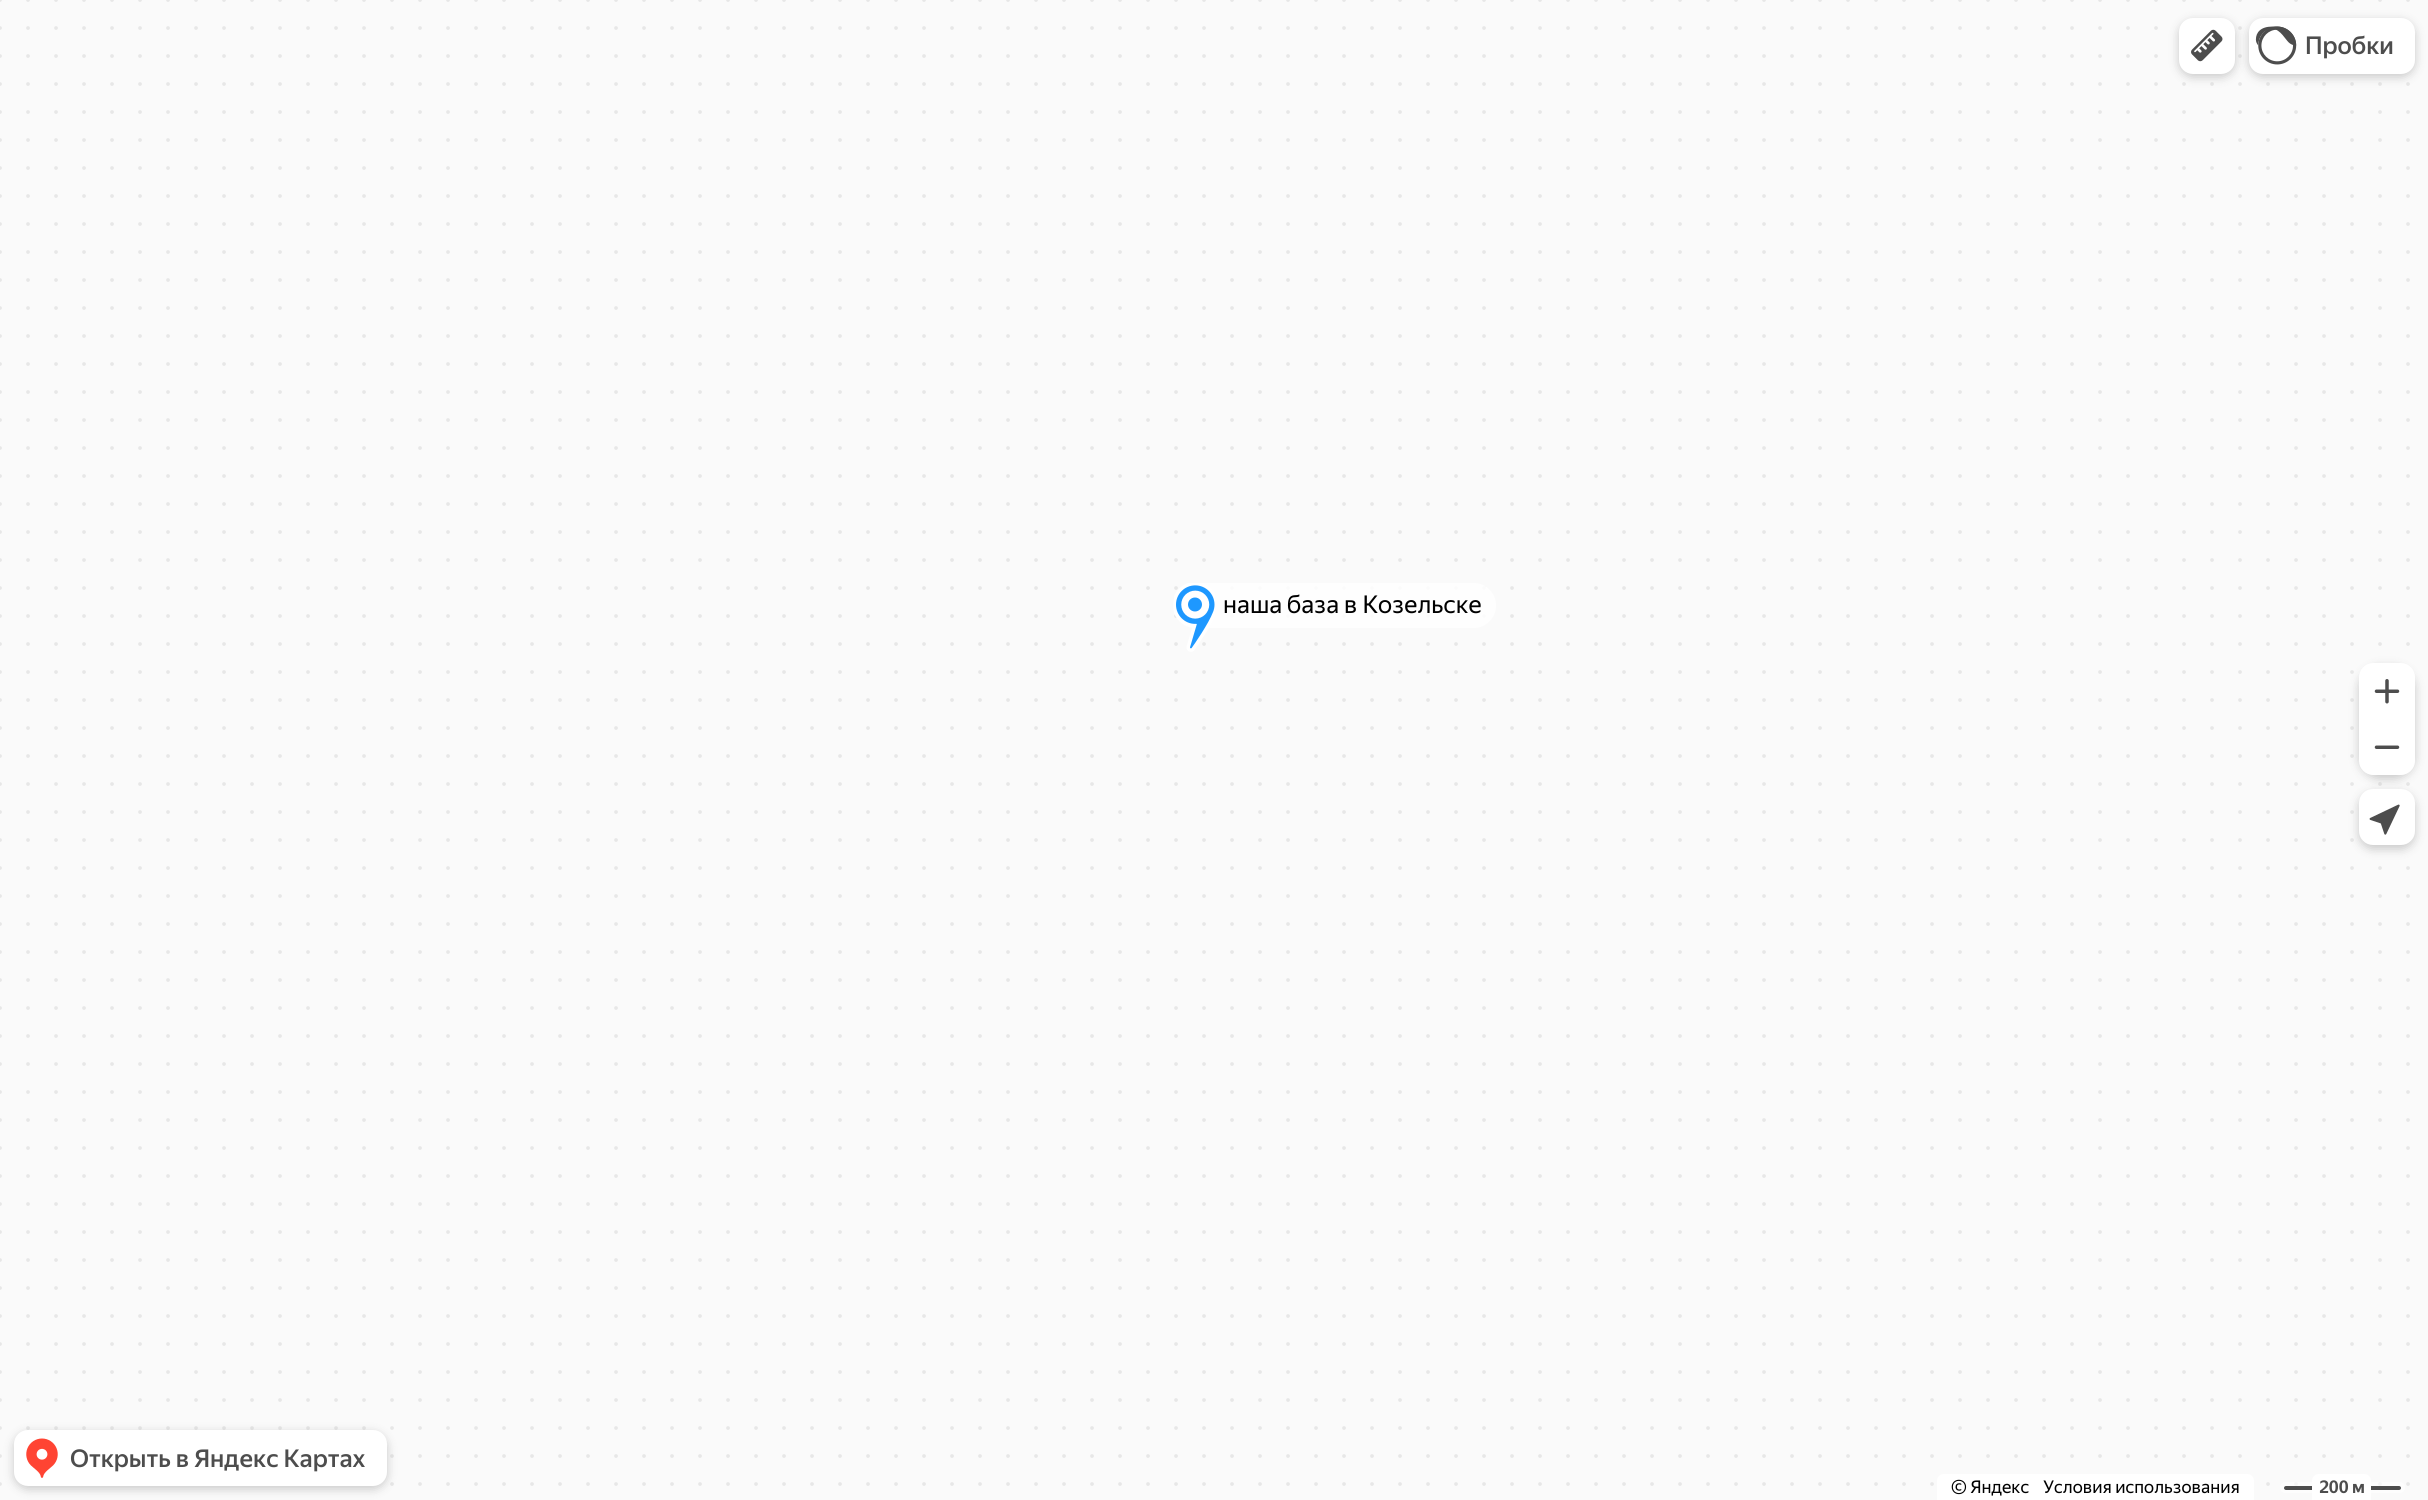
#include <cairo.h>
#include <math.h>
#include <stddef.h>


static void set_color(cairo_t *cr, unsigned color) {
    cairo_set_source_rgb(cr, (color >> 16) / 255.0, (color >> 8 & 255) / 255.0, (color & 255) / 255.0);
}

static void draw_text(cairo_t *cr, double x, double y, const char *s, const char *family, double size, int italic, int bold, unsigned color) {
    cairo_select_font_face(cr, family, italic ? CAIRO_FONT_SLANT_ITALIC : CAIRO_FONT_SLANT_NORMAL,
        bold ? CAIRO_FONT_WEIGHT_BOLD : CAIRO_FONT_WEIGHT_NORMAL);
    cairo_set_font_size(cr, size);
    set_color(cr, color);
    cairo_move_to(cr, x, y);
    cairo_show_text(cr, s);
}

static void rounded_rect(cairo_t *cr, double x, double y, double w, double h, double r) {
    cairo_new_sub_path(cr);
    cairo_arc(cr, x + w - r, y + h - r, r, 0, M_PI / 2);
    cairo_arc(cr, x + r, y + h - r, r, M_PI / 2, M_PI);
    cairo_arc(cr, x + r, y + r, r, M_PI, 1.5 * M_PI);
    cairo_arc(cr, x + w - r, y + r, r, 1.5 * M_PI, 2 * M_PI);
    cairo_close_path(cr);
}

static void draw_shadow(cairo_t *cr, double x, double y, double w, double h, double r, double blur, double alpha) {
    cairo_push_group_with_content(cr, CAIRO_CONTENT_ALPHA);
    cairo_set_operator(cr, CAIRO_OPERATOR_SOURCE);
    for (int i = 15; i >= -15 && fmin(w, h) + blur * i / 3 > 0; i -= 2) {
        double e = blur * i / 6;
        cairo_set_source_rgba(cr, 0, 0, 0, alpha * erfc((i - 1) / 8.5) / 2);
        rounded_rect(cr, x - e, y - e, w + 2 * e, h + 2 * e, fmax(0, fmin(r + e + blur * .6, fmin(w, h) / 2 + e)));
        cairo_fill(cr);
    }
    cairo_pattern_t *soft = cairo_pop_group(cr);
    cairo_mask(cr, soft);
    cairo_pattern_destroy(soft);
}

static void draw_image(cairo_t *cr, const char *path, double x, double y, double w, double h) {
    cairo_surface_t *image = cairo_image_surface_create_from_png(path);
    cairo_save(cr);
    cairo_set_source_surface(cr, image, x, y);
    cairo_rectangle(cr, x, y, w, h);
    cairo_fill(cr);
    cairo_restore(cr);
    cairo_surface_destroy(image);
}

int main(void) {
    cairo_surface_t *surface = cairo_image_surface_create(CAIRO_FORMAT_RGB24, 2428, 1500);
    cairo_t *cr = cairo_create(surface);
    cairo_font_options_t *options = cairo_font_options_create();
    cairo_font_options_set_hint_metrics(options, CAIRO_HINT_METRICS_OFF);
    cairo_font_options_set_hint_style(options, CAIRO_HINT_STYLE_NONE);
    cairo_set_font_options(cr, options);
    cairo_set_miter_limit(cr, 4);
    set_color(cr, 0xFFFFFF);
    cairo_paint(cr);
    draw_image(cr, "assets/img1.png", 0, 0, 2428, 1500);
    set_color(cr, 0x000000);
    draw_shadow(cr, 2179, 21, 56, 56, 14, 5, 0.2);
    set_color(cr, 0xFFFFFF);
    rounded_rect(cr, 2179, 18, 56, 56, 14);
    cairo_fill(cr);
    draw_image(cr, "assets/img2.png", 2191, 29, 32, 33);
    set_color(cr, 0x000000);
    draw_shadow(cr, 2249, 21, 166, 56, 14, 5, 0.2);
    set_color(cr, 0xFFFFFF);
    rounded_rect(cr, 2249, 18, 166, 56, 14);
    cairo_fill(cr);
    draw_image(cr, "assets/img3.png", 2255, 26, 42, 39);
    draw_text(cr, 2305, 54, "Пробки", "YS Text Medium", 24.5, 0, 0, 0x4D4D4D);
    set_color(cr, 0x000000);
    draw_shadow(cr, 2359, 667, 56, 112, 21, 5, 0.2);
    set_color(cr, 0xFFFFFF);
    cairo_new_path(cr);
    cairo_move_to(cr, 2373, 663);
    cairo_line_to(cr, 2401, 663);
    cairo_curve_to(cr, 2408.5, 663, 2415, 669.5, 2415, 677);
    cairo_line_to(cr, 2415, 719);
    cairo_line_to(cr, 2359, 719);
    cairo_line_to(cr, 2359, 677);
    cairo_curve_to(cr, 2359, 669.5, 2365.5, 663, 2373, 663);
    cairo_close_path(cr);
    cairo_fill(cr);
    draw_image(cr, "assets/img4.png", 2374, 679, 26, 25);
    cairo_new_path(cr);
    cairo_move_to(cr, 2359, 719);
    cairo_line_to(cr, 2415, 719);
    cairo_line_to(cr, 2415, 761);
    cairo_curve_to(cr, 2415, 768.5, 2408.5, 775, 2401, 775);
    cairo_line_to(cr, 2373, 775);
    cairo_curve_to(cr, 2365.5, 775, 2359, 768.5, 2359, 761);
    cairo_close_path(cr);
    cairo_fill(cr);
    draw_image(cr, "assets/img5.png", 2374, 745, 26, 4);
    set_color(cr, 0x000000);
    draw_shadow(cr, 2359, 793, 56, 56, 14, 5, 0.2);
    set_color(cr, 0xFFFFFF);
    rounded_rect(cr, 2359, 789, 56, 56, 14);
    cairo_fill(cr);
    draw_image(cr, "assets/img6.png", 2369, 804, 31, 31);
    set_color(cr, 0x000000);
    draw_shadow(cr, 14, 1433, 373, 56, 14, 5, 0.2);
    set_color(cr, 0xFFFFFF);
    rounded_rect(cr, 14, 1430, 373, 56, 14);
    cairo_fill(cr);
    draw_image(cr, "assets/img7.png", 26, 1438, 32, 40);
    draw_text(cr, 70, 1467, "Открыть в Яндекс Картах", "YS Text Medium", 24.5, 0, 0, 0x4D4D4D);
    set_color(cr, 0xFFFFFF);
    cairo_new_path(cr);
    cairo_move_to(cr, 1944, 1474);
    cairo_line_to(cr, 2247, 1474);
    cairo_curve_to(cr, 2251, 1474, 2254, 1477, 2254, 1481);
    cairo_line_to(cr, 2254, 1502);
    cairo_line_to(cr, 1937, 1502);
    cairo_line_to(cr, 1937, 1481);
    cairo_curve_to(cr, 1937, 1477, 1940, 1474, 1944, 1474);
    cairo_close_path(cr);
    cairo_fill(cr);
    draw_text(cr, 1951, 1493, "© Яндекс", "YS Text", 17.5, 0, 0, 0x000000);
    draw_text(cr, 2043, 1493, "Условия использования", "YS Text", 17.5, 0, 0, 0x000000);
    cairo_set_source_rgba(cr, 1, 1, 1, 0.6);
    rounded_rect(cr, 2280, 1482, 125, 11, 5.5);
    cairo_fill(cr);
    set_color(cr, 0x4D4D4D);
    rounded_rect(cr, 2284, 1486, 117, 4, 2);
    cairo_fill(cr);
    set_color(cr, 0xFFFFFF);
    cairo_new_path(cr);
    cairo_move_to(cr, 2319, 1474);
    cairo_line_to(cr, 2364, 1474);
    cairo_curve_to(cr, 2368, 1474, 2371, 1477, 2371, 1481);
    cairo_line_to(cr, 2371, 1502);
    cairo_line_to(cr, 2312, 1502);
    cairo_line_to(cr, 2312, 1481);
    cairo_curve_to(cr, 2312, 1477, 2315, 1474, 2319, 1474);
    cairo_close_path(cr);
    cairo_fill(cr);
    draw_text(cr, 2319, 1493, "200 м", "YS Text", 17.5, 0, 1, 0x4D4D4D);
    cairo_set_source_rgba(cr, 1, 1, 1, 0.85);
    rounded_rect(cr, 1173, 583, 323, 45, 22.5);
    cairo_fill(cr);
    draw_image(cr, "assets/img8.png", 1174, 583, 41, 69);
    draw_text(cr, 1223, 613, "наша база в Козельске", "YS Text", 24.5, 0, 0, 0x000000);
    set_color(cr, 0x1E98FF);
    cairo_new_path(cr);
    cairo_arc(cr, 1195, 604.5, 7, 0, 2 * M_PI);
    cairo_fill(cr);
    cairo_surface_write_to_png(surface, "output.png");
    cairo_font_options_destroy(options);
    cairo_destroy(cr);
    cairo_surface_destroy(surface);
    return 0;
}
